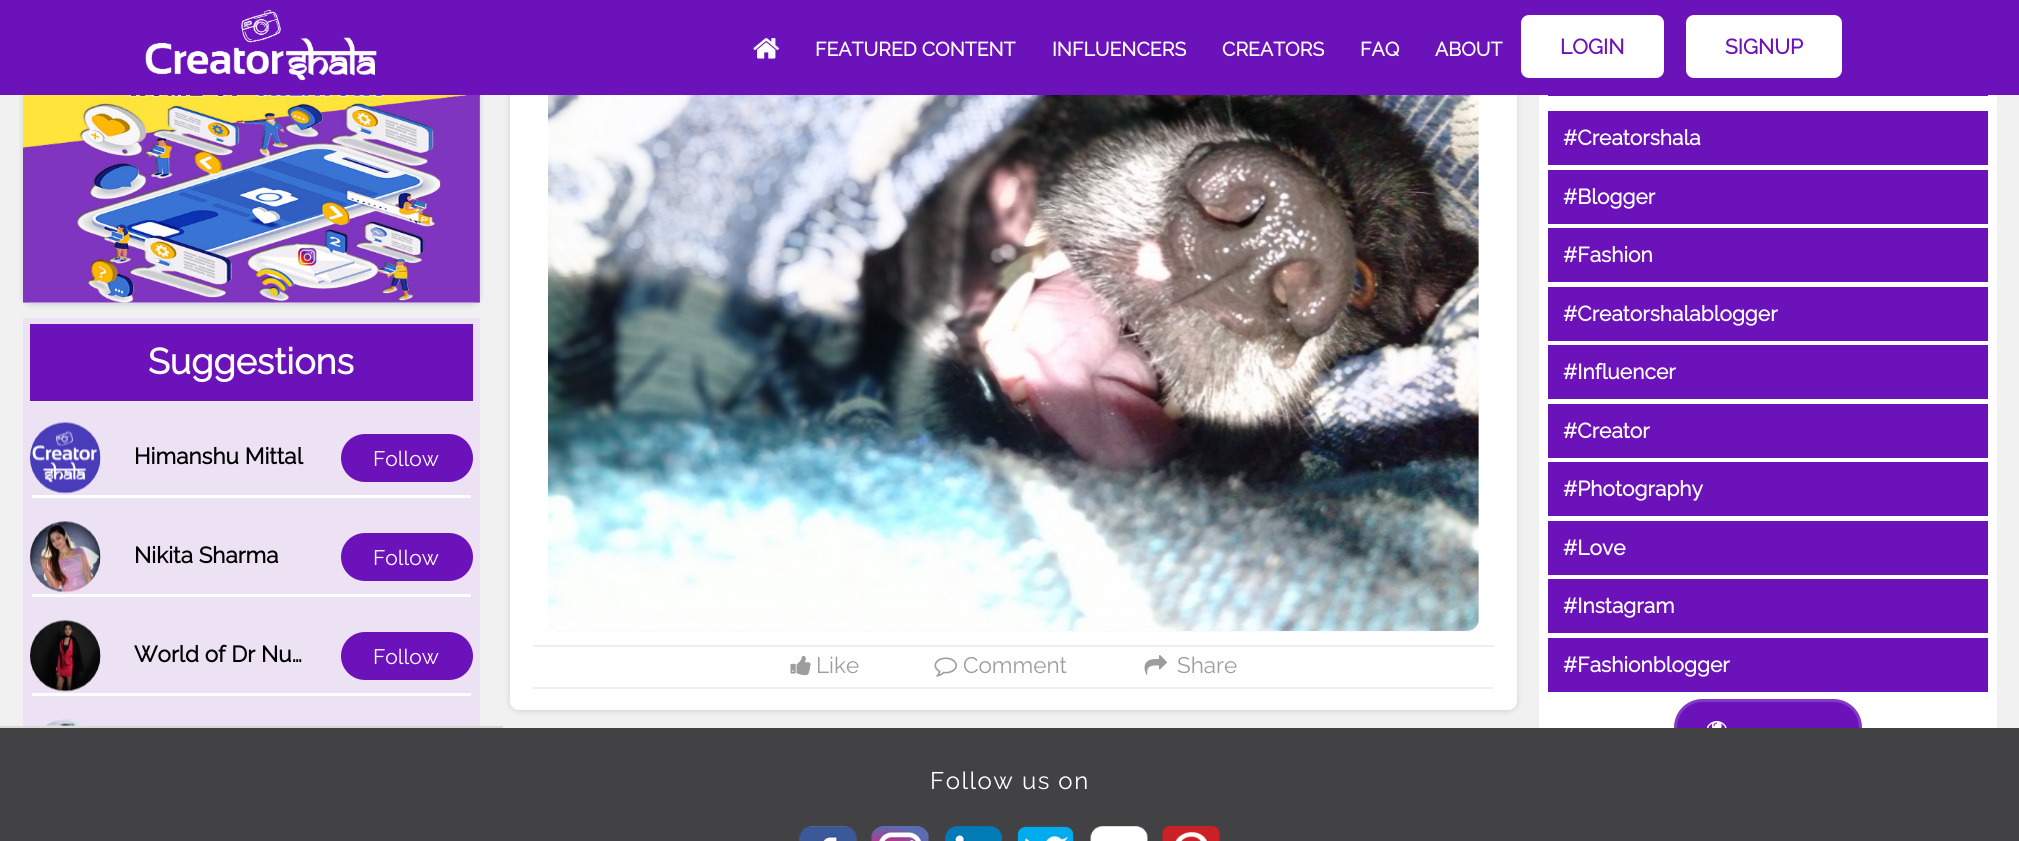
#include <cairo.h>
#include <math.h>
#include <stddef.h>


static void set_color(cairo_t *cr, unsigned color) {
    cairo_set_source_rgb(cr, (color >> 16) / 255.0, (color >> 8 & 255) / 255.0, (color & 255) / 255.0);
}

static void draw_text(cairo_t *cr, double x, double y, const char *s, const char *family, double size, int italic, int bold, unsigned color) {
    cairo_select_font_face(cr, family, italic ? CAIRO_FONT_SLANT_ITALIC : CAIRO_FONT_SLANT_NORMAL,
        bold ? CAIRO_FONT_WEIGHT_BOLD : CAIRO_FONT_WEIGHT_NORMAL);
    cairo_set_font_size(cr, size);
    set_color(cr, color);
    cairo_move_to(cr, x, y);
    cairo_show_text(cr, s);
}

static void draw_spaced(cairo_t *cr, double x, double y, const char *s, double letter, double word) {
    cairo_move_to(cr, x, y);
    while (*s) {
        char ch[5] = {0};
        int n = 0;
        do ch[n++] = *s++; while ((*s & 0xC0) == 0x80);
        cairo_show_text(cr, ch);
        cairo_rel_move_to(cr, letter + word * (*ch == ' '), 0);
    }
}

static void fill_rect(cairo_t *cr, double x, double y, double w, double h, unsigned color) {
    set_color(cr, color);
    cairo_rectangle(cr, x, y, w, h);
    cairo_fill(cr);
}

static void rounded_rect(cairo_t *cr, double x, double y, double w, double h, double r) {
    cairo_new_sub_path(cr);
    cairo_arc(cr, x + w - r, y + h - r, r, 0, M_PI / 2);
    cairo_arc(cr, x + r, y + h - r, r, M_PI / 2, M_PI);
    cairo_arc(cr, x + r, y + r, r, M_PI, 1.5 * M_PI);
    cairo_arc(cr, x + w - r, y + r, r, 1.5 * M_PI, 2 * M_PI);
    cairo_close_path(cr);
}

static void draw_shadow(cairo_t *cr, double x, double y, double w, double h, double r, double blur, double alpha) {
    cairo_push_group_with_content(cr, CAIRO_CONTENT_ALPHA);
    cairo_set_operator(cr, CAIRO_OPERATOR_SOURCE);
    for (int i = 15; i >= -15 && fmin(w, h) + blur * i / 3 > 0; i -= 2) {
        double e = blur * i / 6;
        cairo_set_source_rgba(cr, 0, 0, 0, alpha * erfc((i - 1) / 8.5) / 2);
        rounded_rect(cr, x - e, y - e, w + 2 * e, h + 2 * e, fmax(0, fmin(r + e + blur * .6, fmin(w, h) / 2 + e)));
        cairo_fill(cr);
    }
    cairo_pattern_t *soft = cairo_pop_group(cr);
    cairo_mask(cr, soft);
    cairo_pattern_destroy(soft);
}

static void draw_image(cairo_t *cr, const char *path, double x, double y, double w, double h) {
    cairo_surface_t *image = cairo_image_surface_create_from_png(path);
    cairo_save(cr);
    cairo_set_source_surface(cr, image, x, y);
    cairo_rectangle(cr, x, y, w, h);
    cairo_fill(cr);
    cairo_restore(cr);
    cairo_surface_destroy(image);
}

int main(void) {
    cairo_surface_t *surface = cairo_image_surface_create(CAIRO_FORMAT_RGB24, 2019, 841);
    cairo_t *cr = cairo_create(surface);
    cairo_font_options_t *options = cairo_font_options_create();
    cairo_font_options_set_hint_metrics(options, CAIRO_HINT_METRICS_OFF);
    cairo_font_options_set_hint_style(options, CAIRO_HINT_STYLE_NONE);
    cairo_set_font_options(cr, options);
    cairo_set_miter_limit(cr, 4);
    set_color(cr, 0xF1F1F1);
    cairo_paint(cr);
    set_color(cr, 0x000000);
    draw_shadow(cr, 23, 0, 457, 305, 9, 3, 0.14);
    set_color(cr, 0xFFFFFF);
    rounded_rect(cr, 23, -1, 457, 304, 9);
    cairo_fill(cr);
    set_color(cr, 0x000000);
    draw_shadow(cr, 510, -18, 1007, 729, 9, 3, 0.14);
    set_color(cr, 0xFFFFFF);
    rounded_rect(cr, 510, -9, 1007, 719, 9);
    cairo_fill(cr);
    cairo_save(cr);
    rounded_rect(cr, 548, -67, 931, 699, 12);
    cairo_clip(cr);
    set_color(cr, 0x9D9D9D);
    draw_shadow(cr, 549, -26, 929, 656, 11, 5, 1);
    cairo_restore(cr);
    set_color(cr, 0xFBFBFB);
    rounded_rect(cr, 548, -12, 931, 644, 12);
    cairo_fill(cr);
    fill_rect(cr, 0, 0, 2019, 95, 0x6C12BB);
    draw_image(cr, "assets/img1.png", 145, 9, 232, 72);
    draw_image(cr, "assets/img2.png", 753, 38, 26, 21);
    draw_text(cr, 815, 56, "FEATURED CONTENT", "Raleway", 19.5, 0, 1, 0xFFFFFF);
    draw_text(cr, 1052, 56, "INFLUENCERS", "Raleway", 19.5, 0, 1, 0xFFFFFF);
    draw_text(cr, 1222, 56, "CREATORS", "Raleway", 19.5, 0, 1, 0xFFFFFF);
    draw_text(cr, 1360, 56, "FAQ", "Raleway", 19.5, 0, 1, 0xFFFFFF);
    draw_text(cr, 1435, 56, "ABOUT", "Raleway", 19.5, 0, 1, 0xFFFFFF);
    rounded_rect(cr, 1521, 15, 143, 63, 8);
    cairo_fill(cr);
    draw_text(cr, 1560, 54, "LOGIN", "Raleway", 21, 0, 1, 0x6C12BB);
    set_color(cr, 0xFFFFFF);
    rounded_rect(cr, 1686, 15, 156, 63, 8);
    cairo_fill(cr);
    draw_text(cr, 1725, 54, "SIGNUP", "Raleway", 21, 0, 1, 0x6C12BB);
    fill_rect(cr, 0, 726, 503, 2, 0xD9D9D9);
    draw_image(cr, "assets/img3.png", 23, 95, 457, 208);
    fill_rect(cr, 23, 318, 457, 408, 0xEDE1F4);
    fill_rect(cr, 30, 324, 443, 77, 0x6C12BB);
    draw_text(cr, 148, 374, "Suggestions", "Raleway", 36, 0, 1, 0xFFFFFF);
    draw_image(cr, "assets/img4.png", 30, 422, 71, 72);
    draw_text(cr, 134, 464, "Himanshu Mittal", "Raleway", 22.5, 0, 1, 0x000000);
    set_color(cr, 0x6C12BB);
    rounded_rect(cr, 341, 434, 132, 48, 24);
    cairo_fill(cr);
    draw_text(cr, 373, 466, "Follow", "Raleway Thin", 21, 0, 0, 0xFFFFFF);
    fill_rect(cr, 32, 495, 439, 3, 0xFFFFFF);
    draw_image(cr, "assets/img5.png", 30, 521, 71, 72);
    draw_text(cr, 134, 563, "Nikita Sharma", "Raleway", 22.5, 0, 1, 0x000000);
    set_color(cr, 0x6C12BB);
    rounded_rect(cr, 341, 533, 132, 48, 24);
    cairo_fill(cr);
    draw_text(cr, 373, 565, "Follow", "Raleway Thin", 21, 0, 0, 0xFFFFFF);
    fill_rect(cr, 32, 594, 439, 3, 0xFFFFFF);
    draw_image(cr, "assets/img6.png", 30, 620, 71, 72);
    draw_text(cr, 134, 662, "World of Dr Nu…", "Raleway", 22.5, 0, 1, 0x000000);
    set_color(cr, 0x6C12BB);
    rounded_rect(cr, 341, 632, 132, 48, 24);
    cairo_fill(cr);
    draw_text(cr, 373, 664, "Follow", "Raleway Thin", 21, 0, 0, 0xFFFFFF);
    fill_rect(cr, 32, 693, 439, 3, 0xFFFFFF);
    draw_image(cr, "assets/img7.png", 46, 719, 37, 7);
    draw_image(cr, "assets/img8.png", 548, 95, 931, 536);
    fill_rect(cr, 533, 645, 961, 2, 0xF0F0F0);
    fill_rect(cr, 533, 687, 961, 2, 0xF0F0F0);
    draw_image(cr, "assets/img9.png", 790, 655, 21, 21);
    draw_text(cr, 816, 673, "Like", "Raleway Thin", 22.5, 0, 0, 0x9D9D9D);
    draw_image(cr, "assets/img10.png", 934, 657, 23, 20);
    draw_text(cr, 963, 673, "Comment", "Raleway Thin", 22.5, 0, 0, 0x9D9D9D);
    draw_image(cr, "assets/img11.png", 1144, 655, 23, 20);
    draw_text(cr, 1177, 673, "Share", "Raleway Thin", 22.5, 0, 0, 0x9D9D9D);
    fill_rect(cr, 1539, 95, 458, 633, 0xFFFFFF);
    fill_rect(cr, 1548, 95, 440, 1, 0x6C12BB);
    fill_rect(cr, 1548, 111, 440, 54, 0x6C12BB);
    draw_text(cr, 1563, 145, "#Creatorshala", "Raleway", 21, 0, 1, 0xFFFFFF);
    fill_rect(cr, 1548, 170, 440, 54, 0x6C12BB);
    draw_text(cr, 1563, 204, "#Blogger", "Raleway", 21, 0, 1, 0xFFFFFF);
    fill_rect(cr, 1548, 228, 440, 54, 0x6C12BB);
    draw_text(cr, 1563, 262, "#Fashion", "Raleway", 21, 0, 1, 0xFFFFFF);
    fill_rect(cr, 1548, 287, 440, 54, 0x6C12BB);
    draw_text(cr, 1563, 321, "#Creatorshalablogger", "Raleway", 21, 0, 1, 0xFFFFFF);
    fill_rect(cr, 1548, 345, 440, 54, 0x6C12BB);
    draw_text(cr, 1563, 379, "#Influencer", "Raleway", 21, 0, 1, 0xFFFFFF);
    fill_rect(cr, 1548, 404, 440, 54, 0x6C12BB);
    draw_text(cr, 1563, 438, "#Creator", "Raleway", 21, 0, 1, 0xFFFFFF);
    fill_rect(cr, 1548, 462, 440, 54, 0x6C12BB);
    draw_text(cr, 1563, 496, "#Photography", "Raleway", 21, 0, 1, 0xFFFFFF);
    fill_rect(cr, 1548, 521, 440, 54, 0x6C12BB);
    draw_text(cr, 1563, 555, "#Love", "Raleway", 21, 0, 1, 0xFFFFFF);
    fill_rect(cr, 1548, 579, 440, 54, 0x6C12BB);
    draw_text(cr, 1563, 613, "#Instagram", "Raleway", 21, 0, 1, 0xFFFFFF);
    fill_rect(cr, 1548, 638, 440, 54, 0x6C12BB);
    draw_text(cr, 1563, 672, "#Fashionblogger", "Raleway", 21, 0, 1, 0xFFFFFF);
    set_color(cr, 0x6C12BB);
    rounded_rect(cr, 1675.5, 700.5, 185, 54, 27);
    cairo_fill_preserve(cr);
    set_color(cr, 0x813BC4);
    cairo_set_line_width(cr, 3);
    cairo_stroke(cr);
    draw_image(cr, "assets/img12.png", 1707, 721, 20, 7);
    fill_rect(cr, 0, 728, 2019, 113, 0x424143);
    cairo_select_font_face(cr, "Raleway Thin", CAIRO_FONT_SLANT_NORMAL, CAIRO_FONT_WEIGHT_NORMAL);
    cairo_set_font_size(cr, 24);
    set_color(cr, 0xFFFFFF);
    draw_spaced(cr, 930, 789, "Follow us on", 1.5, 0);
    draw_image(cr, "assets/img13.png", 799, 826, 58, 15);
    draw_image(cr, "assets/img14.png", 871, 826, 58, 15);
    draw_image(cr, "assets/img15.png", 945, 826, 57, 15);
    draw_image(cr, "assets/img16.png", 1017, 826, 57, 15);
    draw_image(cr, "assets/img17.png", 1090, 826, 58, 15);
    draw_image(cr, "assets/img18.png", 1162, 826, 58, 15);
    cairo_surface_write_to_png(surface, "output.png");
    cairo_font_options_destroy(options);
    cairo_destroy(cr);
    cairo_surface_destroy(surface);
    return 0;
}
